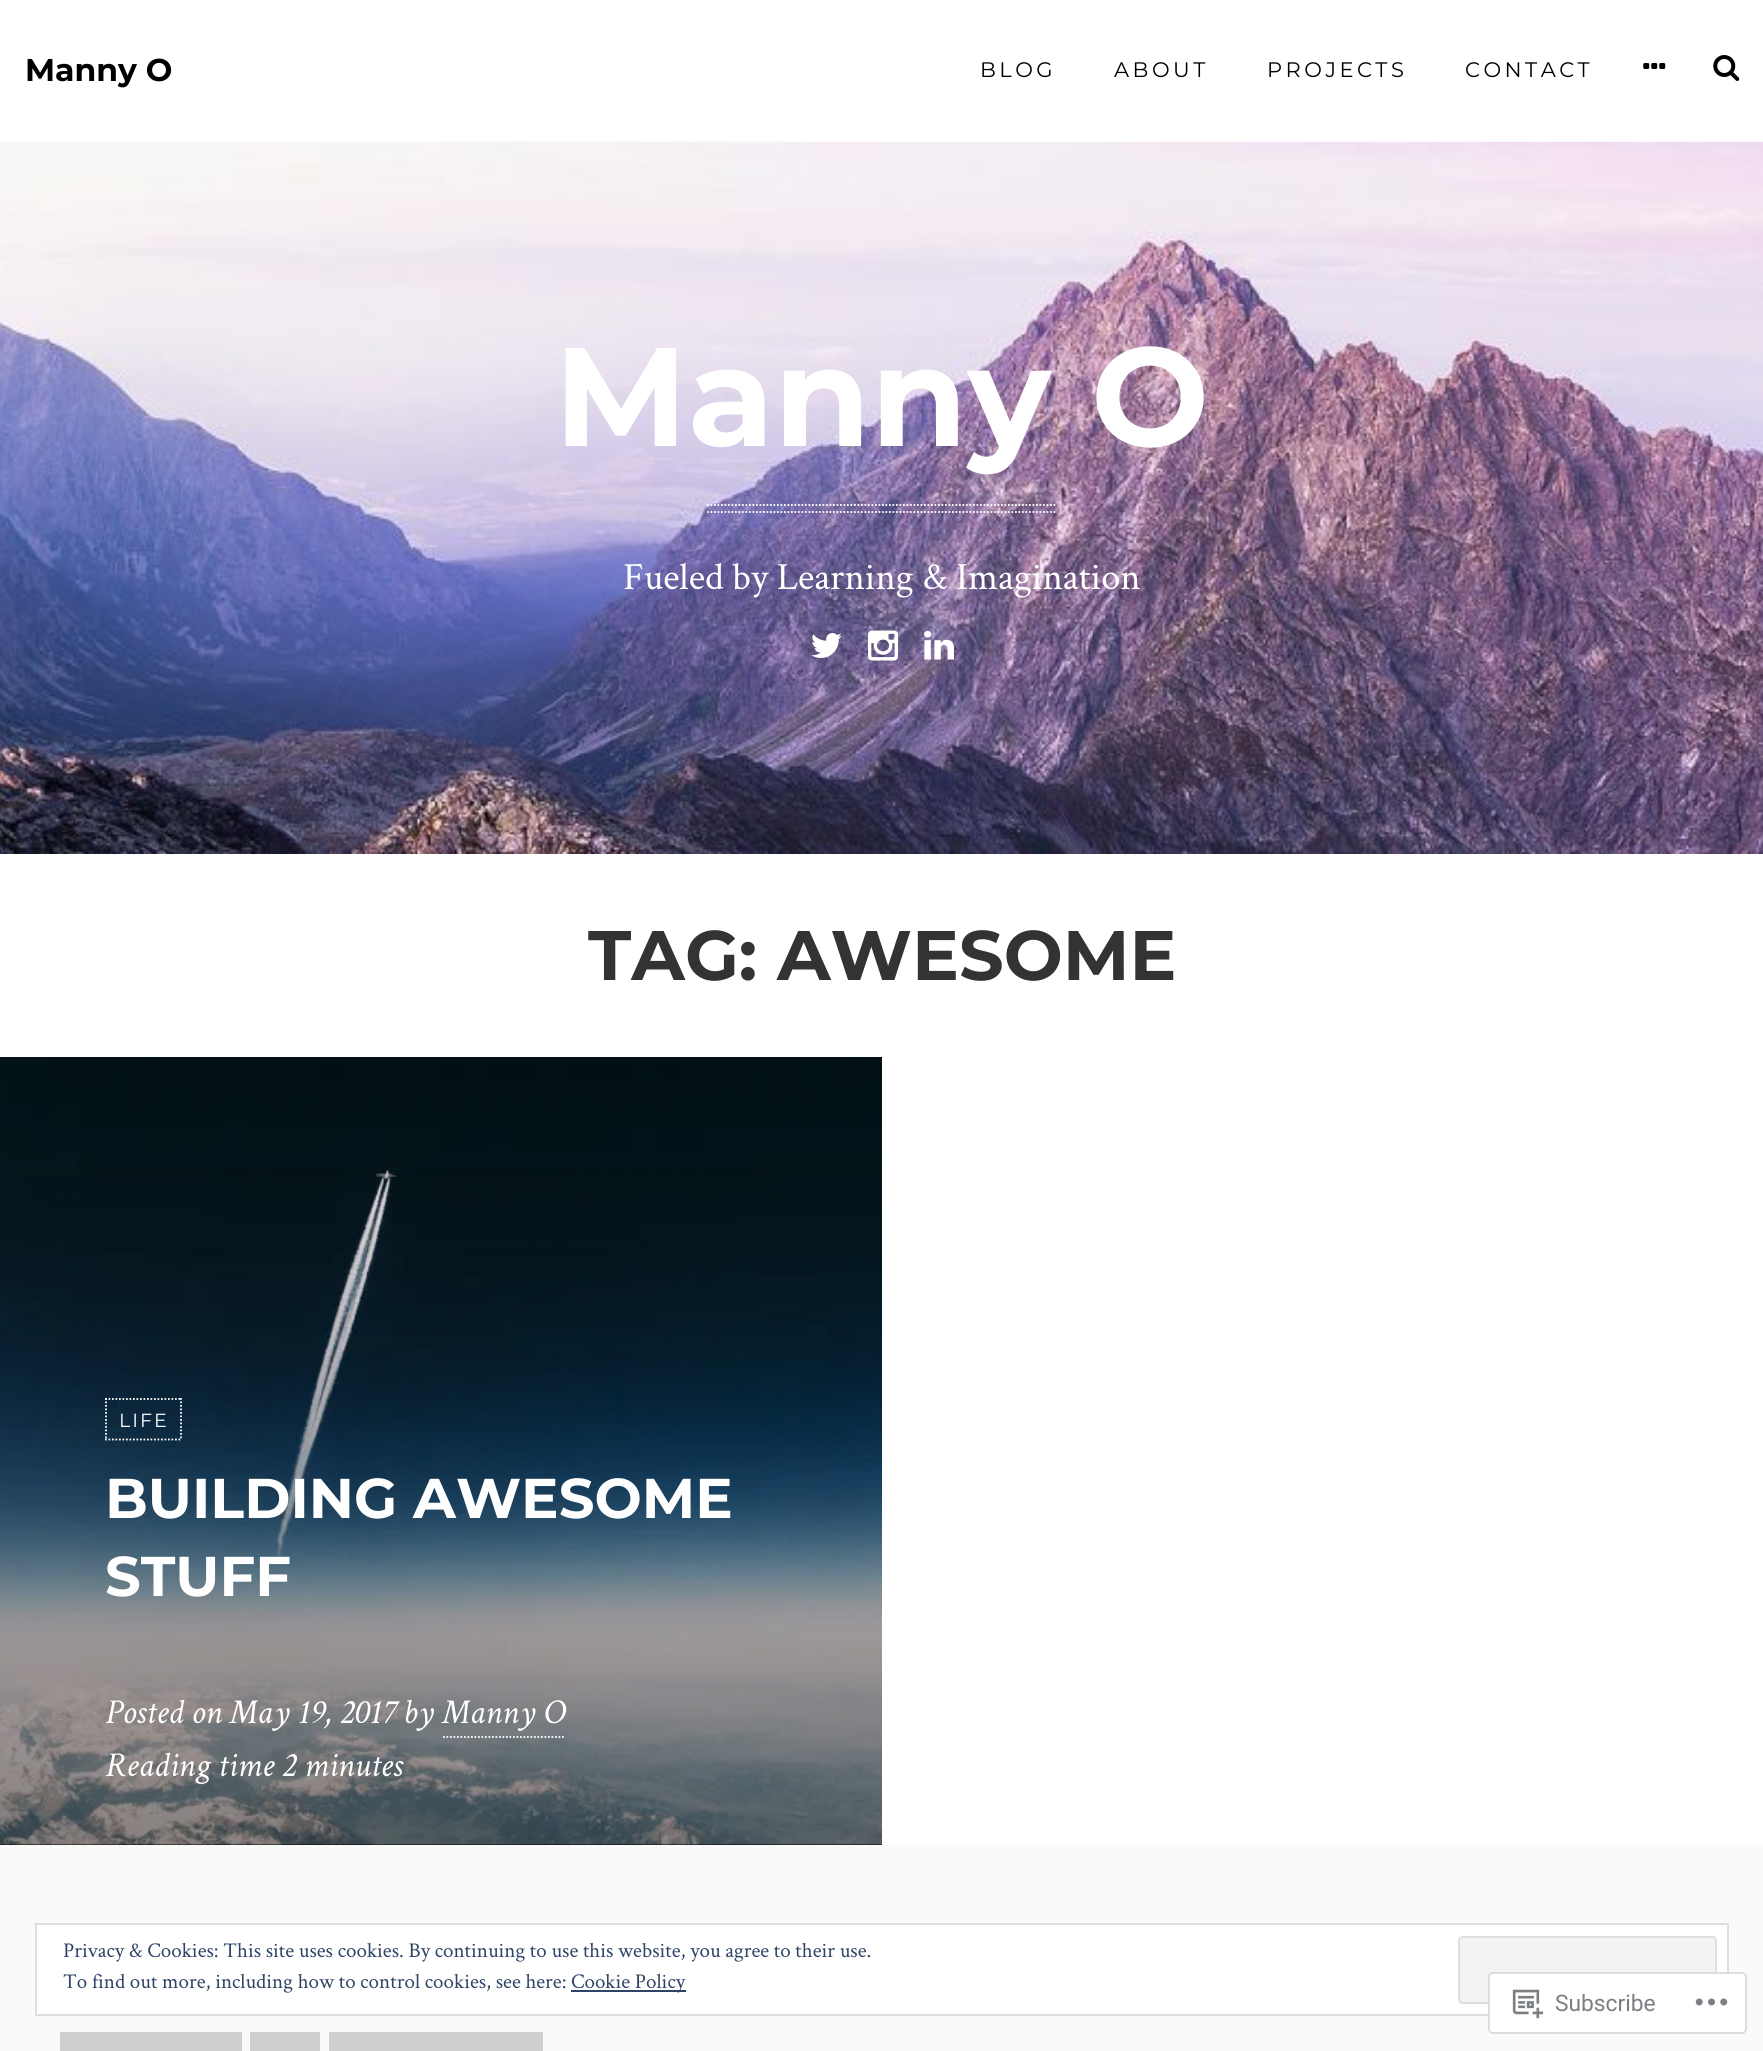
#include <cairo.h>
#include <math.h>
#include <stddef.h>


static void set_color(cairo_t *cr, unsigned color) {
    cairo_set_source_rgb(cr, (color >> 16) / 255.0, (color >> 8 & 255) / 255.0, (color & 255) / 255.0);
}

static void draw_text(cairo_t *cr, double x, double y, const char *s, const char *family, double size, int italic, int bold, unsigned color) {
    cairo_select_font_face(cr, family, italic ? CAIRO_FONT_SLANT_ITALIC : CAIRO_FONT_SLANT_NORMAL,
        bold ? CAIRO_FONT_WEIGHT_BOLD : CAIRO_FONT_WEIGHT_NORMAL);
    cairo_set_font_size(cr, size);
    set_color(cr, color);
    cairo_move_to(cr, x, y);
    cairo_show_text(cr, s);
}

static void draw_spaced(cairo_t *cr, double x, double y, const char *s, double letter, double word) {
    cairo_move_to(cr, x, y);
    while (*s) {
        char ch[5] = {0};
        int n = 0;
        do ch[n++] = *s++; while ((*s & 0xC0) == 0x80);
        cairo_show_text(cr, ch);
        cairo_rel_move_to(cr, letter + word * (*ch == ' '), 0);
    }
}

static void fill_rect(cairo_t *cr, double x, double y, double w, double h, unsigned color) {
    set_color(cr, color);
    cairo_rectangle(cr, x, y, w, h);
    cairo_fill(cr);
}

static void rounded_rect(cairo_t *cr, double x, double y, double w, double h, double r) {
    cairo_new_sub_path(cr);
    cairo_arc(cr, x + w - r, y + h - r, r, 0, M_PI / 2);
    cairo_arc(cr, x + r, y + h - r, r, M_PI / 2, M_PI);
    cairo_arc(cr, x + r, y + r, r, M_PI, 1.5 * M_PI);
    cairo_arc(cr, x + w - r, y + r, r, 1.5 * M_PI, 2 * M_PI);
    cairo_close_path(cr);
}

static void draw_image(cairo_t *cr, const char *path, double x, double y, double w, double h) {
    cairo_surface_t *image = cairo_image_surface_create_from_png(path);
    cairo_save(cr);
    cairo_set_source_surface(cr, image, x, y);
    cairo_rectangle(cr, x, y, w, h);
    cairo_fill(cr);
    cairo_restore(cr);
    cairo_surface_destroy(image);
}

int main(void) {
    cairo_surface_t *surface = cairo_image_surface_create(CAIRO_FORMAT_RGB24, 1763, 2051);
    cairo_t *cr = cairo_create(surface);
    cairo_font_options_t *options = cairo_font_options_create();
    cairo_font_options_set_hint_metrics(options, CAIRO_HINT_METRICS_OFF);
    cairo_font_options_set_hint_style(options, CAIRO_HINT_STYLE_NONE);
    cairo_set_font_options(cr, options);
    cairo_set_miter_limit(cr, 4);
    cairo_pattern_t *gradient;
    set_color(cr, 0xFFFFFF);
    cairo_paint(cr);
    draw_text(cr, 25, 81, "Manny O", "Montserrat", 31.5, 0, 1, 0x000000);
    cairo_select_font_face(cr, "Montserrat", CAIRO_FONT_SLANT_NORMAL, CAIRO_FONT_WEIGHT_NORMAL);
    cairo_set_font_size(cr, 21);
    draw_spaced(cr, 980, 77, "BLOG", 3.5, 0);
    draw_spaced(cr, 1114, 77, "ABOUT", 3.5, 0);
    draw_spaced(cr, 1267, 77, "PROJECTS", 3.5, 0);
    draw_spaced(cr, 1465, 77, "CONTACT", 3.5, 0);
    draw_image(cr, "assets/img1.png", 1643, 63, 23, 6);
    draw_image(cr, "assets/img2.png", 1713, 55, 27, 26);
    draw_image(cr, "assets/img3.png", 0, 141, 1763, 713);
    draw_text(cr, 554, 446, "Manny O", "Montserrat", 140, 0, 1, 0xFFFFFF);
    cairo_new_path(cr);
    cairo_move_to(cr, 707, 505);
    cairo_line_to(cr, 1057, 505);
    cairo_set_line_width(cr, 1.8);
    cairo_set_dash(cr, (double[]){1.75, 1.75}, 2, 0);
    cairo_stroke(cr);
    cairo_new_path(cr);
    cairo_move_to(cr, 707, 512);
    cairo_line_to(cr, 1057, 512);
    cairo_stroke(cr);
    draw_text(cr, 623, 589, "Fueled by Learning & Imagination", "Crimson Text", 38.5, 0, 0, 0xFFFFFF);
    draw_image(cr, "assets/img4.png", 811, 633, 31, 25);
    draw_image(cr, "assets/img5.png", 868, 630, 30, 31);
    draw_image(cr, "assets/img6.png", 924, 630, 30, 30);
    draw_text(cr, 588, 980, "TAG: AWESOME", "Montserrat", 70, 0, 1, 0x333333);
    fill_rect(cr, 0, 1844, 882, 1, 0x000000);
    draw_image(cr, "assets/img7.png", 0, 1057, 882, 788);
    gradient = cairo_pattern_create_linear(441, 1057, 441, 1845);
    cairo_pattern_add_color_stop_rgba(gradient, 0, 0, 0, 0, 0);
    cairo_pattern_add_color_stop_rgba(gradient, 1, 0, 0, 0, 0.45);
    cairo_set_source(cr, gradient);
    cairo_pattern_destroy(gradient);
    cairo_rectangle(cr, 0, 1170, 882, 675);
    cairo_fill(cr);
    cairo_select_font_face(cr, "Montserrat", CAIRO_FONT_SLANT_NORMAL, CAIRO_FONT_WEIGHT_NORMAL);
    cairo_set_font_size(cr, 19);
    set_color(cr, 0xFFFFFF);
    draw_spaced(cr, 119, 1427, "LIFE", 2, 0);
    cairo_new_path(cr);
    cairo_move_to(cr, 105, 1399);
    cairo_line_to(cr, 182, 1399);
    cairo_stroke(cr);
    cairo_new_path(cr);
    cairo_move_to(cr, 181, 1398);
    cairo_line_to(cr, 181, 1440);
    cairo_stroke(cr);
    cairo_new_path(cr);
    cairo_move_to(cr, 105, 1439.5);
    cairo_line_to(cr, 182, 1439.5);
    cairo_stroke(cr);
    cairo_new_path(cr);
    cairo_move_to(cr, 106, 1398);
    cairo_line_to(cr, 106, 1440);
    cairo_stroke(cr);
    draw_text(cr, 105, 1518, "BUILDING AWESOME", "Montserrat", 56, 0, 1, 0xFFFFFF);
    draw_text(cr, 105, 1596, "STUFF", "Montserrat", 56, 0, 1, 0xFFFFFF);
    draw_text(cr, 105, 1723, "Posted on May 19, 2017", "Crimson Text", 35, 1, 0, 0xFFFFFF);
    draw_text(cr, 403, 1723, "by Manny O", "Crimson Text", 35, 1, 0, 0xFFFFFF);
    cairo_new_path(cr);
    cairo_move_to(cr, 443, 1737);
    cairo_line_to(cr, 565, 1737);
    cairo_stroke(cr);
    draw_text(cr, 105, 1776, "Reading time 2 minutes", "Crimson Text", 35, 1, 0, 0xFFFFFF);
    fill_rect(cr, 0, 1845, 1763, 206, 0xFAFAFA);
    fill_rect(cr, 60, 2032, 182, 19, 0xCFCFCF);
    fill_rect(cr, 250, 2032, 70, 19, 0xCFCFCF);
    fill_rect(cr, 329, 2032, 214, 19, 0xCFCFCF);
    set_color(cr, 0xFFFFFF);
    cairo_rectangle(cr, 36, 1924, 1692, 91);
    cairo_fill_preserve(cr);
    set_color(cr, 0xDEDEDE);
    cairo_set_line_width(cr, 2);
    cairo_set_dash(cr, NULL, 0, 0);
    cairo_stroke(cr);
    draw_text(cr, 63, 1957, "Privacy & Cookies: This site uses cookies. By continuing to use this website, you agree to their use.", "Crimson Text", 21, 0, 0, 0x2E4467);
    set_color(cr, 0xF3F3F3);
    rounded_rect(cr, 1459, 1937, 257, 66, 4);
    cairo_fill_preserve(cr);
    set_color(cr, 0xDEDEDE);
    cairo_stroke(cr);
    draw_text(cr, 63, 1988, "To find out more, including how to control cookies, see here:", "Crimson Text", 21, 0, 0, 0x2E4467);
    fill_rect(cr, 571, 1990, 115, 2, 0x2E4467);
    draw_text(cr, 571, 1988, "Cookie Policy", "Crimson Text", 21, 0, 0, 0x2E4467);
    cairo_set_source_rgba(cr, 1, 1, 1, 0.98);
    rounded_rect(cr, 1488, 1972, 259, 62, 5);
    cairo_fill(cr);
    rounded_rect(cr, 1489, 1973, 257, 60, 4);
    cairo_set_source_rgba(cr, 0.863, 0.863, 0.871, 0.98);
    cairo_stroke(cr);
    draw_image(cr, "assets/img8.png", 1512, 1989, 32, 30);
    draw_text(cr, 1555, 2011, "Subscribe", "Roboto", 22.75, 0, 0, 0x7B7F84);
    draw_image(cr, "assets/img9.png", 1695, 1998, 33, 8);
    cairo_surface_write_to_png(surface, "output.png");
    cairo_font_options_destroy(options);
    cairo_destroy(cr);
    cairo_surface_destroy(surface);
    return 0;
}
